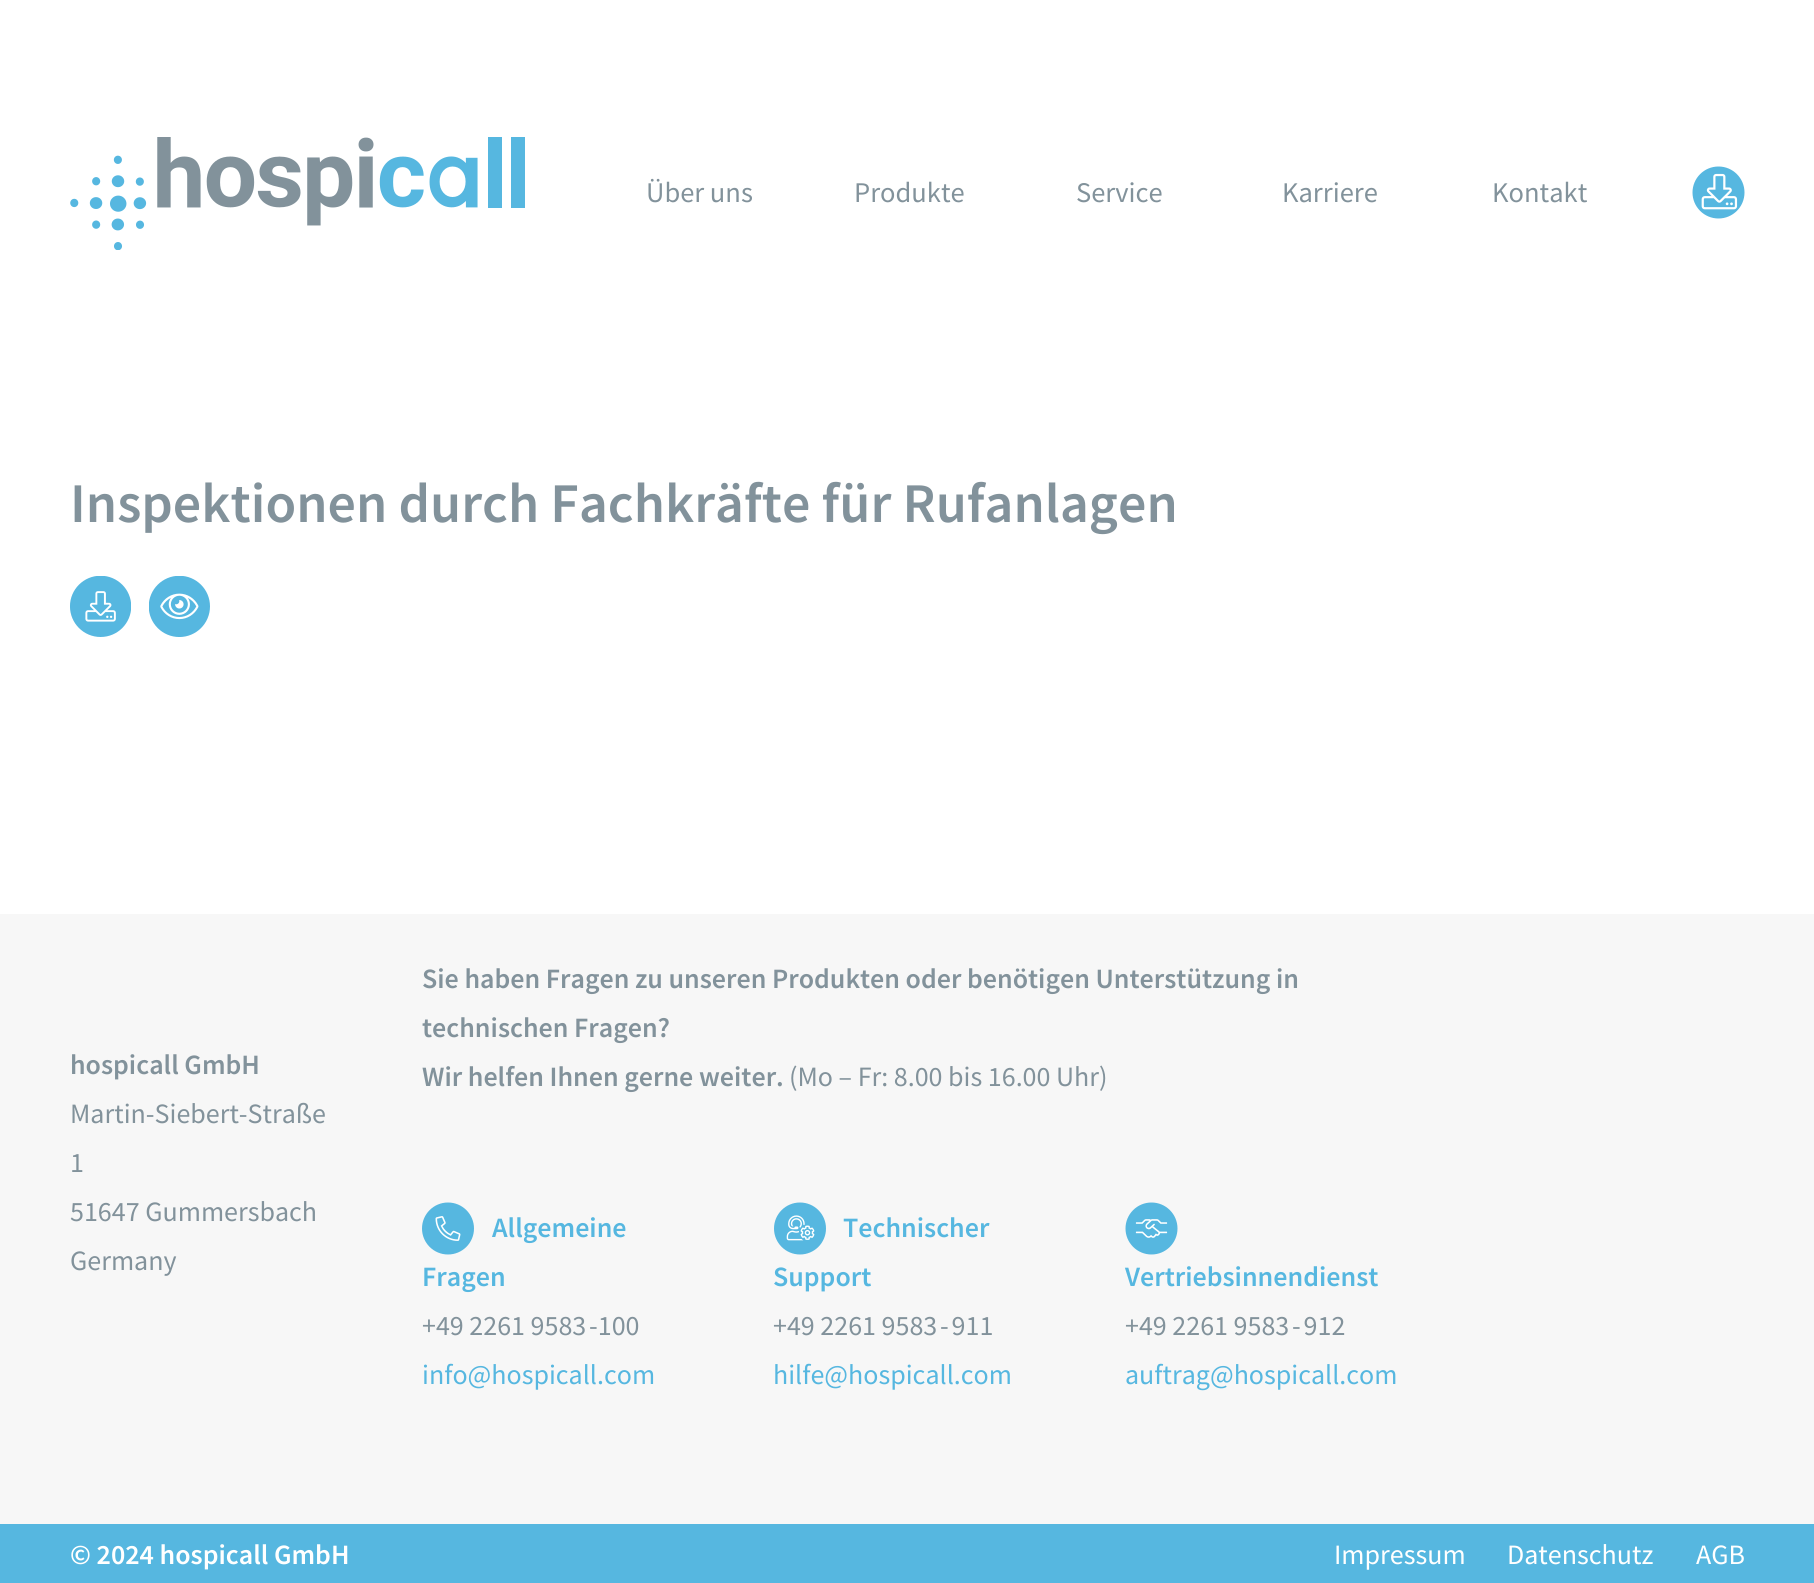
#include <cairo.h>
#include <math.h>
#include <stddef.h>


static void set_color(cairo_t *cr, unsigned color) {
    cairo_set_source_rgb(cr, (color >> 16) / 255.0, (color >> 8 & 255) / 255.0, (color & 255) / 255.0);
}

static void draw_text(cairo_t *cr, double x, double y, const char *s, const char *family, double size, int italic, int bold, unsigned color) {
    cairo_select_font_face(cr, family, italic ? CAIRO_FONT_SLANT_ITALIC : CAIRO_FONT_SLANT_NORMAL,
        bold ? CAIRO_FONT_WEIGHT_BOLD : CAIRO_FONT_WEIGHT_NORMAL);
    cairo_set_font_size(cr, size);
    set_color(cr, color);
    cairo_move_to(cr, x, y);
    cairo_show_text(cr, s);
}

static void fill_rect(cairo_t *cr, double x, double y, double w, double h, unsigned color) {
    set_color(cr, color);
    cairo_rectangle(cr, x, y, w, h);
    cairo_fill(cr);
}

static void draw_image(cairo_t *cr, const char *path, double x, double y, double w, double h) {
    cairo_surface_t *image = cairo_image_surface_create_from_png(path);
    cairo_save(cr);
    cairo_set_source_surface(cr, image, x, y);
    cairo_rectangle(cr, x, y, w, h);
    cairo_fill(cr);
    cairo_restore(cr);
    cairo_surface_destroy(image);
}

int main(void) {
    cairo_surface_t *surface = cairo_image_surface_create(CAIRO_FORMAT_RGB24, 1814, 1583);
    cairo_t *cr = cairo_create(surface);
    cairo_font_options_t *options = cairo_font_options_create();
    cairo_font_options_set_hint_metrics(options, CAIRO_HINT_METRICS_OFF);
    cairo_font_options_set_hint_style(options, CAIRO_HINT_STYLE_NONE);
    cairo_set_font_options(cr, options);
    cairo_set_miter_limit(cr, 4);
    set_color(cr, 0xFFFFFF);
    cairo_paint(cr);
    draw_image(cr, "assets/img1.png", 70, 137, 455, 113);
    draw_text(cr, 646, 202, "Über uns", "Source Sans Pro", 28.5, 0, 0, 0x82929B);
    draw_text(cr, 854, 202, "Produkte", "Source Sans Pro", 28.5, 0, 0, 0x82929B);
    draw_text(cr, 1076, 202, "Service", "Source Sans Pro", 28.5, 0, 0, 0x82929B);
    draw_text(cr, 1282, 202, "Karriere", "Source Sans Pro", 28.5, 0, 0, 0x82929B);
    draw_text(cr, 1492, 202, "Kontakt", "Source Sans Pro", 28.5, 0, 0, 0x82929B);
    draw_image(cr, "assets/img2.png", 1692, 166, 53, 53);
    draw_text(cr, 70, 522, "Inspektionen durch Fachkräfte für Rufanlagen", "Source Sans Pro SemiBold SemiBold", 56, 0, 0, 0x82929B);
    draw_image(cr, "assets/img3.png", 70, 576, 61, 61);
    draw_image(cr, "assets/img4.png", 149, 576, 61, 61);
    fill_rect(cr, 0, 914, 1814, 610, 0xF7F7F7);
    draw_text(cr, 70, 1074, "hospicall GmbH", "Source Sans Pro SemiBold SemiBold", 28, 0, 0, 0x82929B);
    draw_text(cr, 70, 1123, "Martin-Siebert-Straße", "Source Sans Pro", 28, 0, 0, 0x82929B);
    draw_text(cr, 70, 1172, "1", "Source Sans Pro", 28, 0, 0, 0x82929B);
    draw_text(cr, 70, 1221, "51647 Gummersbach", "Source Sans Pro", 28, 0, 0, 0x82929B);
    draw_text(cr, 70, 1270, "Germany", "Source Sans Pro", 28, 0, 0, 0x82929B);
    draw_text(cr, 422, 988, "Sie haben Fragen zu unseren Produkten oder benötigen Unterstützung in", "Source Sans Pro SemiBold SemiBold", 28, 0, 0, 0x82929B);
    draw_text(cr, 422, 1037, "technischen Fragen?", "Source Sans Pro SemiBold SemiBold", 28, 0, 0, 0x82929B);
    draw_text(cr, 422, 1086, "Wir helfen Ihnen gerne weiter.", "Source Sans Pro SemiBold SemiBold", 28, 0, 0, 0x82929B);
    draw_text(cr, 789, 1086, "(Mo – Fr: 8.00 bis 16.00 Uhr)", "Source Sans Pro", 28, 0, 0, 0x82929B);
    draw_image(cr, "assets/img5.png", 422, 1202, 52, 53);
    draw_text(cr, 492, 1237, "Allgemeine", "Source Sans Pro SemiBold SemiBold", 28, 0, 0, 0x56B7E0);
    draw_text(cr, 422, 1286, "Fragen", "Source Sans Pro SemiBold SemiBold", 28, 0, 0, 0x56B7E0);
    draw_text(cr, 422, 1335, "+49 2261 9583 -100", "Source Sans Pro", 28, 0, 0, 0x82929B);
    draw_text(cr, 422, 1384, "info@hospicall.com", "Source Sans Pro", 28, 0, 0, 0x56B7E0);
    draw_image(cr, "assets/img6.png", 774, 1202, 52, 53);
    draw_text(cr, 843, 1237, "Technischer", "Source Sans Pro SemiBold SemiBold", 28, 0, 0, 0x56B7E0);
    draw_text(cr, 773, 1286, "Support", "Source Sans Pro SemiBold SemiBold", 28, 0, 0, 0x56B7E0);
    draw_text(cr, 773, 1335, "+49 2261 9583 - 911", "Source Sans Pro", 28, 0, 0, 0x82929B);
    draw_text(cr, 773, 1384, "hilfe@hospicall.com", "Source Sans Pro", 28, 0, 0, 0x56B7E0);
    draw_image(cr, "assets/img7.png", 1125, 1202, 53, 53);
    draw_text(cr, 1125, 1286, "Vertriebsinnendienst", "Source Sans Pro SemiBold SemiBold", 28, 0, 0, 0x56B7E0);
    draw_text(cr, 1125, 1335, "+49 2261 9583 - 912", "Source Sans Pro", 28, 0, 0, 0x82929B);
    draw_text(cr, 1125, 1384, "auftrag@hospicall.com", "Source Sans Pro", 28, 0, 0, 0x56B7E0);
    fill_rect(cr, 0, 1524, 1814, 59, 0x56B7E0);
    draw_text(cr, 70, 1564, "© 2024 hospicall GmbH", "Source Sans Pro SemiBold SemiBold", 28, 0, 0, 0xFFFFFF);
    draw_text(cr, 1334, 1564, "Impressum", "Source Sans Pro", 28, 0, 0, 0xFFFFFF);
    draw_text(cr, 1507, 1564, "Datenschutz", "Source Sans Pro", 28, 0, 0, 0xFFFFFF);
    draw_text(cr, 1696, 1564, "AGB", "Source Sans Pro", 28, 0, 0, 0xFFFFFF);
    cairo_surface_write_to_png(surface, "output.png");
    cairo_font_options_destroy(options);
    cairo_destroy(cr);
    cairo_surface_destroy(surface);
    return 0;
}
